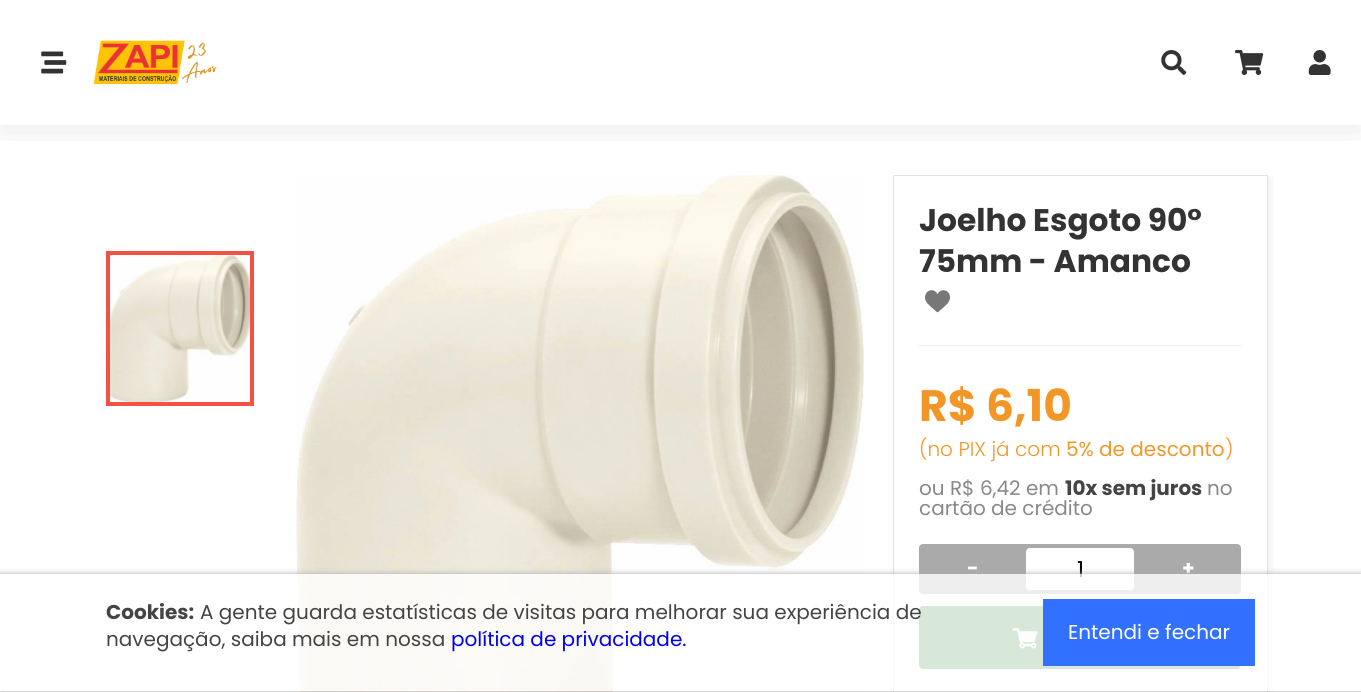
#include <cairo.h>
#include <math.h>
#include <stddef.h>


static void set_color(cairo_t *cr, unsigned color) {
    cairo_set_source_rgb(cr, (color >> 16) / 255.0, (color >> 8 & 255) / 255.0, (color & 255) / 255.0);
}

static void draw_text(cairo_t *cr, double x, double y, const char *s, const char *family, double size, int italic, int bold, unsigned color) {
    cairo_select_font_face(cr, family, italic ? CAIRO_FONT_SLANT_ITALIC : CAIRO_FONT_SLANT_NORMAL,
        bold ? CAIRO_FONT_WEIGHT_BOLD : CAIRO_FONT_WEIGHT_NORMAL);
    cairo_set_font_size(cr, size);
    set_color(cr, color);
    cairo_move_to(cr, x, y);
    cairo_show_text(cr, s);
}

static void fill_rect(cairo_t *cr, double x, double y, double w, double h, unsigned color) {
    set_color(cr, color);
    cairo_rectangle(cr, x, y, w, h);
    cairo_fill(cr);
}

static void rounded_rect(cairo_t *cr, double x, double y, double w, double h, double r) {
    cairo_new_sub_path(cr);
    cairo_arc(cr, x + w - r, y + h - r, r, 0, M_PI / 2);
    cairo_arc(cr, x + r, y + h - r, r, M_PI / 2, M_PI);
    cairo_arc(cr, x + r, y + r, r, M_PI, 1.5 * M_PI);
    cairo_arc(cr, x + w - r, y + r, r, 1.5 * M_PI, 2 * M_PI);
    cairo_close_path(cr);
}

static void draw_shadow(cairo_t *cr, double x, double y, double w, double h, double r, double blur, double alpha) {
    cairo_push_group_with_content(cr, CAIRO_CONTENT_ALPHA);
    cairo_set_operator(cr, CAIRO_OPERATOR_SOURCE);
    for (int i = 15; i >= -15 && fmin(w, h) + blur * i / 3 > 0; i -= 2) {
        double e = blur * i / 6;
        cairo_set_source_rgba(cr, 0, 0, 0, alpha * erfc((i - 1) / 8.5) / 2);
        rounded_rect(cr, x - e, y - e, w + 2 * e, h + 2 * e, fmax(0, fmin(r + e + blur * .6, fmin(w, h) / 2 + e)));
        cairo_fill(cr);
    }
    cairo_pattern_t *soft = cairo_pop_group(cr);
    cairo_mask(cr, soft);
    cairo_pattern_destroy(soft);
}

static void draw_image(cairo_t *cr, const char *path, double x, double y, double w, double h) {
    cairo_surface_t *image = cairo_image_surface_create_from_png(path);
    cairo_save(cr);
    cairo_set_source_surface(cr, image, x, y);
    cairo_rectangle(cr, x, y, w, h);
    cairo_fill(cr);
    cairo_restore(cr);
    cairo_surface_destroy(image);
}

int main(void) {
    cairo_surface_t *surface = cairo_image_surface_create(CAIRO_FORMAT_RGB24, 1361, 692);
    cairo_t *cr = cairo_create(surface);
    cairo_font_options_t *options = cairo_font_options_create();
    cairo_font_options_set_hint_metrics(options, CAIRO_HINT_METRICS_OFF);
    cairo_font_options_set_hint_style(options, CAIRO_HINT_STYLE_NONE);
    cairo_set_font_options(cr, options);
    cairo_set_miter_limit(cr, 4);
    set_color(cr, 0xFFFFFF);
    cairo_paint(cr);
    draw_image(cr, "assets/img7.png", 296, 175, 568, 517);
    cairo_save(cr);
    cairo_rectangle(cr, 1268, 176, 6, 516);
    cairo_clip(cr);
    set_color(cr, 0x6C6C6C);
    draw_shadow(cr, 896, 178, 375, 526, 0, 4, 0.1);
    cairo_restore(cr);
    cairo_rectangle(cr, 893.5, 175.5, 374, 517);
    set_color(cr, 0xE3E3E3);
    cairo_set_line_width(cr, 1);
    cairo_stroke(cr);
    cairo_save(cr);
    cairo_rectangle(cr, 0, 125, 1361, 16);
    cairo_clip(cr);
    set_color(cr, 0x000000);
    draw_shadow(cr, 0, 0, 1361, 125, 0, 19, 0.1);
    cairo_restore(cr);
    draw_image(cr, "assets/img1.png", 41, 51, 26, 23);
    draw_image(cr, "assets/img2.png", 93, 40, 124, 45);
    draw_image(cr, "assets/img3.png", 1161, 50, 26, 25);
    draw_image(cr, "assets/img4.png", 1235, 50, 29, 25);
    draw_image(cr, "assets/img5.png", 1308, 50, 23, 25);
    draw_image(cr, "assets/img6.png", 110, 255, 140, 147);
    cairo_rectangle(cr, 108, 253, 144, 151);
    set_color(cr, 0xF25143);
    cairo_set_line_width(cr, 4);
    cairo_stroke(cr);
    fill_rect(cr, 919, 345, 322, 1, 0xEEEEEE);
    draw_text(cr, 919, 231, "Joelho Esgoto 90°", "Poppins", 31.25, 0, 1, 0x333333);
    draw_text(cr, 919, 272, "75mm - Amanco", "Poppins", 31.25, 0, 1, 0x333333);
    draw_image(cr, "assets/img8.png", 925, 290, 25, 23);
    draw_text(cr, 919, 421, "R$ 6,10", "Poppins", 44, 0, 1, 0xF29727);
    draw_text(cr, 919, 456, "(no PIX já com", "Poppins Light", 20, 0, 0, 0xF29727);
    draw_text(cr, 1066, 456, "5% de desconto", "Poppins", 20, 0, 0, 0xF29727);
    draw_text(cr, 1225, 456, ")", "Poppins Light", 20, 0, 0, 0xF29727);
    draw_text(cr, 919, 495, "ou R$ 6,42 em", "Poppins", 20, 0, 0, 0x888888);
    draw_text(cr, 1065, 495, "10x sem juros", "Poppins", 20, 0, 1, 0x444444);
    draw_text(cr, 1207, 495, "no", "Poppins", 20, 0, 0, 0x888888);
    draw_text(cr, 919, 515, "cartão de crédito", "Poppins", 20, 0, 0, 0x888888);
    set_color(cr, 0xAAAAAA);
    rounded_rect(cr, 919, 544, 322, 50, 4);
    cairo_fill(cr);
    draw_text(cr, 967, 575, "-", "Poppins", 20, 0, 1, 0xFFFFFF);
    rounded_rect(cr, 1026, 548, 108, 42, 4);
    cairo_fill(cr);
    draw_text(cr, 1077, 577, "1", "Poppins", 22, 0, 0, 0x000000);
    draw_text(cr, 1182, 575, "+", "Poppins", 20, 0, 1, 0xFFFFFF);
    set_color(cr, 0x388E3C);
    rounded_rect(cr, 919, 606, 322, 63, 4);
    cairo_fill(cr);
    draw_image(cr, "assets/img9.png", 1012, 628, 26, 21);
    cairo_save(cr);
    cairo_set_fill_rule(cr, CAIRO_FILL_RULE_EVEN_ODD);
    cairo_new_path(cr);
    cairo_move_to(cr, 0, 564);
    cairo_line_to(cr, 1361, 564);
    cairo_line_to(cr, 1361, 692);
    cairo_line_to(cr, 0, 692);
    cairo_close_path(cr);
    cairo_move_to(cr, 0, 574);
    cairo_line_to(cr, 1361, 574);
    cairo_line_to(cr, 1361, 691);
    cairo_line_to(cr, 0, 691);
    cairo_close_path(cr);
    cairo_clip(cr);
    set_color(cr, 0xAAAAAA);
    draw_shadow(cr, 0, 574, 1361, 117, 0, 3, 1);
    cairo_restore(cr);
    cairo_set_source_rgba(cr, 1, 1, 1, 0.8);
    cairo_rectangle(cr, 296, 574, 978, 117);
    cairo_fill(cr);
    draw_text(cr, 106, 619, "Cookies:", "Poppins", 20, 0, 1, 0x444444);
    draw_text(cr, 200, 619, "A gente guarda estatísticas de visitas para melhorar sua experiência de", "Poppins", 20, 0, 0, 0x444444);
    draw_text(cr, 106, 646, "navegação, saiba mais em nossa", "Poppins", 20, 0, 0, 0x444444);
    draw_text(cr, 451, 646, "política de privacidade.", "Poppins", 20, 0, 0, 0x0000EE);
    fill_rect(cr, 1043, 599, 212, 67, 0x3271FF);
    draw_text(cr, 1068, 639, "Entendi e fechar", "Poppins", 20, 0, 0, 0xFFFFFF);
    cairo_surface_write_to_png(surface, "output.png");
    cairo_font_options_destroy(options);
    cairo_destroy(cr);
    cairo_surface_destroy(surface);
    return 0;
}
